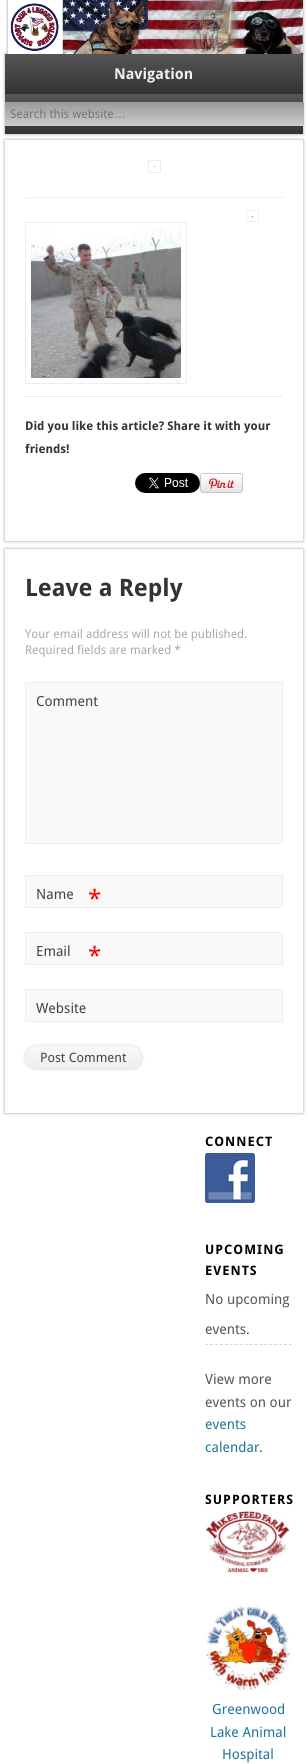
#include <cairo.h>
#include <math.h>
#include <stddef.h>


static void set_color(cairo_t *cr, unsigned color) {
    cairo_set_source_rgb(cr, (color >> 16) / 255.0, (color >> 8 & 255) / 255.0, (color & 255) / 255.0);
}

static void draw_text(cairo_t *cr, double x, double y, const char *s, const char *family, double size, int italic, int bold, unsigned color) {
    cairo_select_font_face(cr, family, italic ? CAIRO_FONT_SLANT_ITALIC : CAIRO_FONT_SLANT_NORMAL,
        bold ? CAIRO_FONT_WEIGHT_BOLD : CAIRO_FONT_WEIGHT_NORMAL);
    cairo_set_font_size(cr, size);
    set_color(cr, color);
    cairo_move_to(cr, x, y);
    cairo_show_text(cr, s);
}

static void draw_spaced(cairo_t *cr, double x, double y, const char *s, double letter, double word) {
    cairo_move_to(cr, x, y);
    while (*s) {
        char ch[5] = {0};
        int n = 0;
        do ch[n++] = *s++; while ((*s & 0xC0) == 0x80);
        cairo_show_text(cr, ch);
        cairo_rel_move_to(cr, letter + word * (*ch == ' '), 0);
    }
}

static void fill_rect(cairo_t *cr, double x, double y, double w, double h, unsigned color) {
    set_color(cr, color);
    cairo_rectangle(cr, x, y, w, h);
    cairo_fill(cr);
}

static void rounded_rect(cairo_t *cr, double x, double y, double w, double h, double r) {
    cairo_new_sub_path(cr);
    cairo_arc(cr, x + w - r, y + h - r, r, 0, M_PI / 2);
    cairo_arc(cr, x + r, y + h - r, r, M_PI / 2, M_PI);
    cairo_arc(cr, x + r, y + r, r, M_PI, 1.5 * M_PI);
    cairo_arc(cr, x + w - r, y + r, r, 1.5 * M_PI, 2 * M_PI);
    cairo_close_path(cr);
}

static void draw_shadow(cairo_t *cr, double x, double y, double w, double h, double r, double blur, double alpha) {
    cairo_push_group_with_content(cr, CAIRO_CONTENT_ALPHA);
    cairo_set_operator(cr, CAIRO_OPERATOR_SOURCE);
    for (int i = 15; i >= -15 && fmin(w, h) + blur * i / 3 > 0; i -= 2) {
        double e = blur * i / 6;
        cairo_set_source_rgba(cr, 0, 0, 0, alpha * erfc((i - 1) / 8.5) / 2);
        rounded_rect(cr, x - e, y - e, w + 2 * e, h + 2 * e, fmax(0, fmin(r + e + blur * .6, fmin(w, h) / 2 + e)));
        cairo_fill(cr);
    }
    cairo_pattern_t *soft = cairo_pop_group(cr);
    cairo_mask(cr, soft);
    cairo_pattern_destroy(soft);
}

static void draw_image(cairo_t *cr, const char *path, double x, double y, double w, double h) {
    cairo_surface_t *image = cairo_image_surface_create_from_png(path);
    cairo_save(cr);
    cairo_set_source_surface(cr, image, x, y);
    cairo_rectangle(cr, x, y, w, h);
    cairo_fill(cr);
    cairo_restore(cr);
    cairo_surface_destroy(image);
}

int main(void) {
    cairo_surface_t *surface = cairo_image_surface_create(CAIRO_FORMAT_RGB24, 308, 1764);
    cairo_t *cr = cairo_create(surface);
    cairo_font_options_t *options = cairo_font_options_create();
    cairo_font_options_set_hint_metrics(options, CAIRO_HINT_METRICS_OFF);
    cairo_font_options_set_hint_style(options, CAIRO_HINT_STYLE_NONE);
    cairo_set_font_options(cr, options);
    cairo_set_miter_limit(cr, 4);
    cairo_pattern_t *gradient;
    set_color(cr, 0xFFFFFF);
    cairo_paint(cr);
    set_color(cr, 0x999999);
    draw_shadow(cr, 8, 0, 295, 54, 0, 1.5, 1);
    draw_shadow(cr, 5, 54, 298, 80, 0, 1.5, 1);
    draw_image(cr, "assets/img1.png", 8, 0, 295, 54);
    gradient = cairo_pattern_create_linear(154, 54, 154, 94);
    cairo_pattern_add_color_stop_rgba(gradient, 0, 0.333, 0.333, 0.333, 1);
    cairo_pattern_add_color_stop_rgba(gradient, 1, 0.2, 0.2, 0.2, 1);
    cairo_set_source(cr, gradient);
    cairo_pattern_destroy(gradient);
    cairo_rectangle(cr, 5, 54, 298, 40);
    cairo_fill(cr);
    draw_text(cr, 114, 79, "Navigation", "Droid Sans", 15, 0, 1, 0xF0F0F0);
    gradient = cairo_pattern_create_linear(154, 94, 154, 134);
    cairo_pattern_add_color_stop_rgba(gradient, 0, 0.333, 0.333, 0.333, 1);
    cairo_pattern_add_color_stop_rgba(gradient, 1, 0.2, 0.2, 0.2, 1);
    cairo_set_source(cr, gradient);
    cairo_pattern_destroy(gradient);
    cairo_rectangle(cr, 5, 94, 298, 40);
    cairo_fill(cr);
    gradient = cairo_pattern_create_linear(155, 102, 155, 126);
    cairo_pattern_add_color_stop_rgba(gradient, 0, 0.6, 0.6, 0.6, 1);
    cairo_pattern_add_color_stop_rgba(gradient, 1, 0.8, 0.8, 0.8, 1);
    cairo_set_source(cr, gradient);
    cairo_pattern_destroy(gradient);
    cairo_rectangle(cr, 5, 102, 299, 24);
    cairo_fill(cr);
    draw_text(cr, 10, 118, "Search this website", "Droid Sans", 12, 0, 0, 0x757575);
    draw_text(cr, 114, 118, "…", "Liberation Sans", 12, 0, 0, 0x757575);
    cairo_save(cr);
    cairo_set_fill_rule(cr, CAIRO_FILL_RULE_EVEN_ODD);
    cairo_new_path(cr);
    cairo_move_to(cr, 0, 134);
    cairo_line_to(cr, 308, 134);
    cairo_line_to(cr, 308, 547);
    cairo_line_to(cr, 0, 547);
    cairo_close_path(cr);
    cairo_move_to(cr, 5, 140);
    cairo_line_to(cr, 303, 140);
    cairo_line_to(cr, 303, 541);
    cairo_line_to(cr, 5, 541);
    cairo_close_path(cr);
    cairo_clip(cr);
    set_color(cr, 0x999999);
    draw_shadow(cr, 5, 140, 298, 401, 0, 1.5, 1);
    cairo_restore(cr);
    cairo_rectangle(cr, 148.5, 160.5, 12, 12);
    set_color(cr, 0xEEEEEE);
    cairo_set_line_width(cr, 1);
    cairo_stroke(cr);
    fill_rect(cr, 154, 166, 1, 1, 0xBDAA9F);
    fill_rect(cr, 25, 197, 258, 1, 0xEEEEEE);
    fill_rect(cr, 25, 396, 258, 1, 0xEEEEEE);
    cairo_rectangle(cr, 246.5, 210.5, 12, 11);
    cairo_stroke(cr);
    fill_rect(cr, 252, 216, 1, 1, 0x7D7979);
    cairo_rectangle(cr, 25.5, 222.5, 161, 161);
    set_color(cr, 0xEEEEEE);
    cairo_stroke(cr);
    draw_image(cr, "assets/img2.png", 31, 228, 150, 150);
    draw_text(cr, 25, 430, "Did you like this article? Share it with your", "Droid Sans", 12, 0, 1, 0x333333);
    draw_text(cr, 25, 453, "friends!", "Droid Sans", 12, 0, 1, 0x333333);
    draw_image(cr, "assets/img3.png", 135, 473, 65, 20);
    draw_image(cr, "assets/img4.png", 200, 473, 43, 20);
    cairo_save(cr);
    cairo_set_fill_rule(cr, CAIRO_FILL_RULE_EVEN_ODD);
    cairo_new_path(cr);
    cairo_move_to(cr, 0, 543);
    cairo_line_to(cr, 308, 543);
    cairo_line_to(cr, 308, 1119);
    cairo_line_to(cr, 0, 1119);
    cairo_close_path(cr);
    cairo_move_to(cr, 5, 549);
    cairo_line_to(cr, 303, 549);
    cairo_line_to(cr, 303, 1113);
    cairo_line_to(cr, 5, 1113);
    cairo_close_path(cr);
    cairo_clip(cr);
    set_color(cr, 0x999999);
    draw_shadow(cr, 5, 549, 298, 564, 0, 1.5, 1);
    cairo_restore(cr);
    draw_text(cr, 25, 596, "Leave a Reply", "Droid Sans", 24, 0, 1, 0x333333);
    draw_text(cr, 25, 638, "Your email address will not be published.", "Droid Sans", 12, 0, 0, 0xAAAAAA);
    draw_text(cr, 25, 654, "Required fields are marked *", "Droid Sans", 12, 0, 0, 0xAAAAAA);
    set_color(cr, 0xF9F9F9);
    cairo_rectangle(cr, 25.5, 682.5, 257, 161);
    cairo_fill_preserve(cr);
    set_color(cr, 0xEEEEEE);
    cairo_stroke(cr);
    draw_text(cr, 36, 706, "Comment", "Droid Sans", 14, 0, 0, 0x444444);
    set_color(cr, 0xF9F9F9);
    cairo_rectangle(cr, 25.5, 875.5, 257, 32);
    cairo_fill_preserve(cr);
    set_color(cr, 0xEEEEEE);
    cairo_stroke(cr);
    draw_text(cr, 36, 899, "Name", "Droid Sans", 14, 0, 0, 0x444444);
    draw_text(cr, 88, 907, "*", "Droid Sans", 24, 0, 0, 0xFF0000);
    set_color(cr, 0xF9F9F9);
    cairo_rectangle(cr, 25.5, 932.5, 257, 32);
    cairo_fill_preserve(cr);
    set_color(cr, 0xEEEEEE);
    cairo_stroke(cr);
    draw_text(cr, 36, 956, "Email", "Droid Sans", 14, 0, 0, 0x444444);
    draw_text(cr, 88, 964, "*", "Droid Sans", 24, 0, 0, 0xFF0000);
    set_color(cr, 0xF9F9F9);
    cairo_rectangle(cr, 25.5, 989.5, 257, 32);
    cairo_fill_preserve(cr);
    set_color(cr, 0xEEEEEE);
    cairo_stroke(cr);
    draw_text(cr, 36, 1013, "Website", "Droid Sans", 14, 0, 0, 0x444444);
    set_color(cr, 0xCCCCCC);
    draw_shadow(cr, 25, 1046, 117, 23, 11.5, 1.5, 1);
    gradient = cairo_pattern_create_linear(84, 1046, 84, 1069);
    cairo_pattern_add_color_stop_rgba(gradient, 0, 0.976, 0.976, 0.976, 1);
    cairo_pattern_add_color_stop_rgba(gradient, 1, 0.933, 0.933, 0.933, 1);
    cairo_set_source(cr, gradient);
    cairo_pattern_destroy(gradient);
    rounded_rect(cr, 25, 1046, 117, 23, 11.5);
    cairo_fill(cr);
    draw_text(cr, 40, 1062, "Post Comment", "Droid Sans", 13, 0, 0, 0x444444);
    cairo_select_font_face(cr, "Droid Sans", CAIRO_FONT_SLANT_NORMAL, CAIRO_FONT_WEIGHT_BOLD);
    set_color(cr, 0x000000);
    draw_spaced(cr, 205, 1146, "CONNECT", 1, 0);
    draw_image(cr, "assets/img5.png", 205, 1153, 50, 50);
    draw_spaced(cr, 205, 1254, "UPCOMING", 1, 0);
    draw_spaced(cr, 205, 1275, "EVENTS", 1, 0);
    cairo_new_path(cr);
    cairo_move_to(cr, 205, 1344.5);
    cairo_line_to(cr, 292, 1344.5);
    set_color(cr, 0xD9D9D9);
    cairo_set_dash(cr, (double[]){3, 1.94}, 2, 0);
    cairo_stroke(cr);
    draw_text(cr, 205, 1304, "No upcoming", "Droid Sans", 14, 0, 0, 0x555555);
    draw_text(cr, 205, 1334, "events.", "Droid Sans", 14, 0, 0, 0x555555);
    draw_text(cr, 205, 1384, "View more", "Droid Sans", 14, 0, 0, 0x555555);
    draw_text(cr, 205, 1407, "events on our", "Droid Sans", 14, 0, 0, 0x555555);
    draw_text(cr, 205, 1429, "events", "Droid Sans", 14, 0, 0, 0x21759B);
    draw_text(cr, 205, 1452, "calendar", "Droid Sans", 14, 0, 0, 0x21759B);
    draw_text(cr, 259, 1452, ".", "Droid Sans", 14, 0, 0, 0x555555);
    cairo_select_font_face(cr, "Droid Sans", CAIRO_FONT_SLANT_NORMAL, CAIRO_FONT_WEIGHT_BOLD);
    cairo_set_font_size(cr, 13);
    set_color(cr, 0x000000);
    draw_spaced(cr, 205, 1504, "SUPPORTERS", 1, 0);
    draw_image(cr, "assets/img6.png", 205, 1510, 87, 64);
    draw_image(cr, "assets/img7.png", 205, 1604, 86, 87);
    draw_text(cr, 212, 1714, "Greenwood", "Droid Sans", 14, 0, 0, 0x21759B);
    draw_text(cr, 210, 1737, "Lake Animal", "Droid Sans", 14, 0, 0, 0x21759B);
    draw_text(cr, 222, 1759, "Hospital", "Droid Sans", 14, 0, 0, 0x21759B);
    cairo_surface_write_to_png(surface, "output.png");
    cairo_font_options_destroy(options);
    cairo_destroy(cr);
    cairo_surface_destroy(surface);
    return 0;
}
